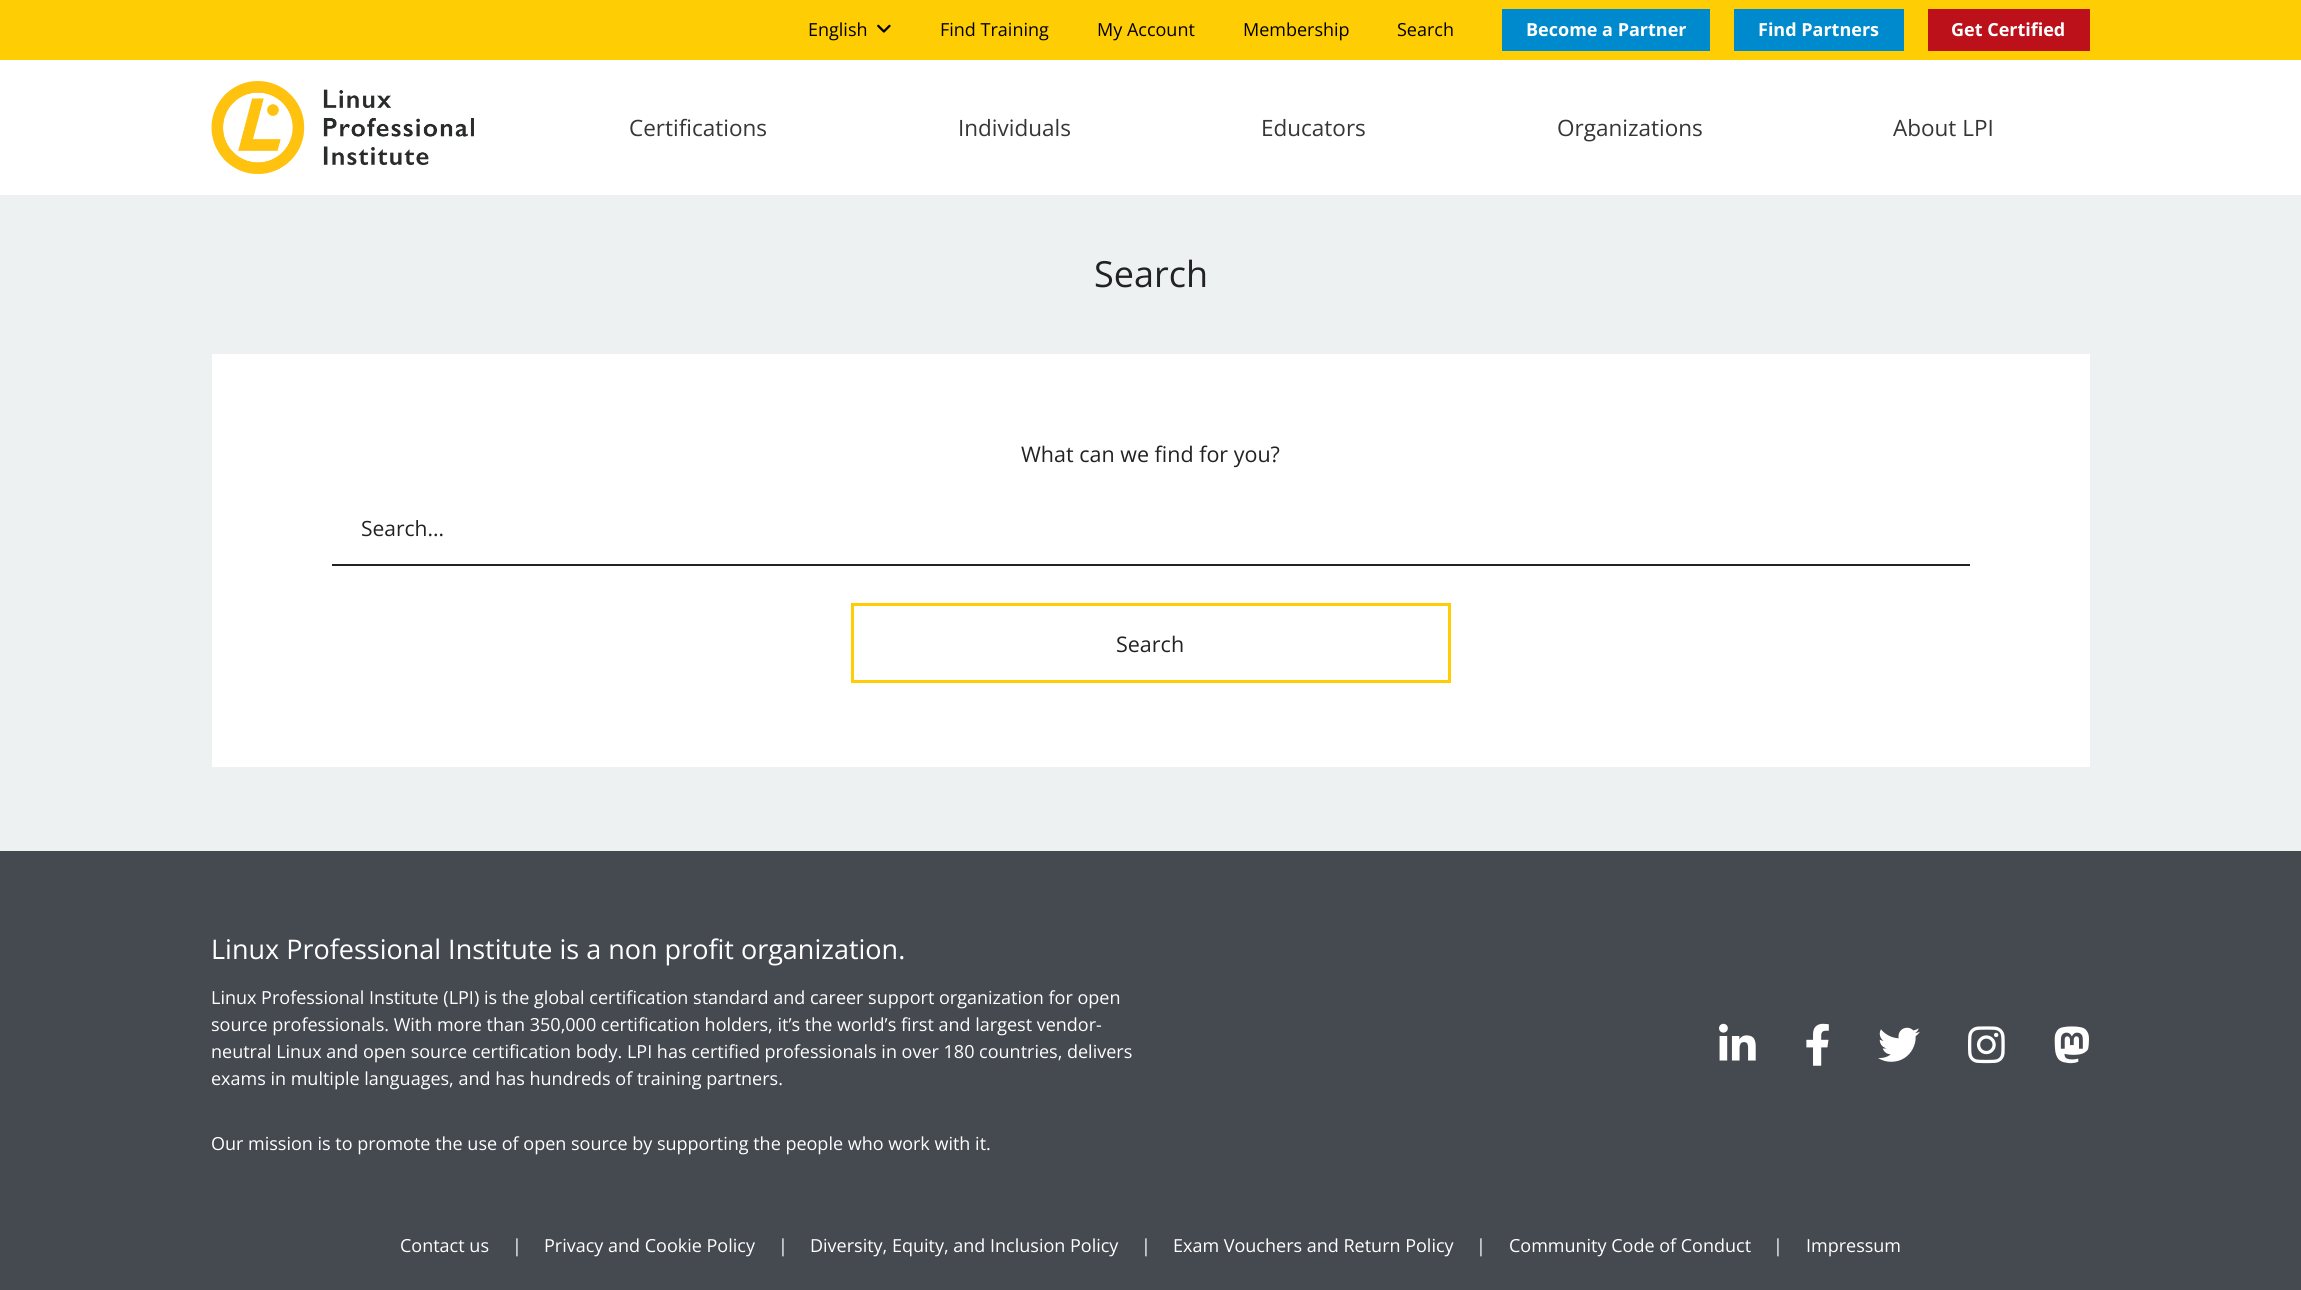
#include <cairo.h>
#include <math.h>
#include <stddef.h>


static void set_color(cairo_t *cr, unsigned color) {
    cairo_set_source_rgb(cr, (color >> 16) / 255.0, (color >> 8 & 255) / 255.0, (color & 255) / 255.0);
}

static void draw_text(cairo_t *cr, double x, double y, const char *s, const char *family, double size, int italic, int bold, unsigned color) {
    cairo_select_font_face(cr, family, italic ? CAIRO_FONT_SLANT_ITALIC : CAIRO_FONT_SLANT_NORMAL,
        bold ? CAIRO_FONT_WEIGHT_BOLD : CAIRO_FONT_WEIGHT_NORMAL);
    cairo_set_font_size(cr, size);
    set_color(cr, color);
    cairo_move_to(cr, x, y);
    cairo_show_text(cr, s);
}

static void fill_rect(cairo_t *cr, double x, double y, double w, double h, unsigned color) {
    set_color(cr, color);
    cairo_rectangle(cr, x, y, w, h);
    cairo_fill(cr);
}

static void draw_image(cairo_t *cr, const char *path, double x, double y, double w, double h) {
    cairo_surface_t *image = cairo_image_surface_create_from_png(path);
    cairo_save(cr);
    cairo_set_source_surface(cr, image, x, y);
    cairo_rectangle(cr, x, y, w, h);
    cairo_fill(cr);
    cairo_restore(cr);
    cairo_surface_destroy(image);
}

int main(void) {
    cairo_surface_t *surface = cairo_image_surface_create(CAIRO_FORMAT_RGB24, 2301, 1290);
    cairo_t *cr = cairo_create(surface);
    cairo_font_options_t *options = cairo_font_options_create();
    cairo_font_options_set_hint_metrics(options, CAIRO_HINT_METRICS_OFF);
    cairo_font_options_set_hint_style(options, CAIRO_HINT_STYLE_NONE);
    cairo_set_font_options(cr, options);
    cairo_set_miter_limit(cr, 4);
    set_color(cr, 0xEEF1F2);
    cairo_paint(cr);
    fill_rect(cr, 0, 0, 2301, 60, 0xFFCD04);
    draw_text(cr, 808, 36, "English", "Open Sans", 18, 0, 0, 0x000000);
    draw_image(cr, "assets/img1.png", 877, 24, 14, 9);
    draw_text(cr, 940, 36, "Find Training", "Open Sans", 18, 0, 0, 0x000000);
    draw_text(cr, 1097, 36, "My Account", "Open Sans", 18, 0, 0, 0x000000);
    draw_text(cr, 1243, 36, "Membership", "Open Sans", 18, 0, 0, 0x000000);
    draw_text(cr, 1397, 36, "Search", "Open Sans", 18, 0, 0, 0x000000);
    fill_rect(cr, 1502, 9, 208, 42, 0x008ACE);
    draw_text(cr, 1526, 36, "Become a Partner", "Open Sans", 18, 0, 1, 0xFFFFFF);
    fill_rect(cr, 1734, 9, 170, 42, 0x008ACE);
    draw_text(cr, 1758, 36, "Find Partners", "Open Sans", 18, 0, 1, 0xFFFFFF);
    fill_rect(cr, 1928, 9, 162, 42, 0xBC111A);
    draw_text(cr, 1951, 36, "Get Certified", "Open Sans", 18, 0, 1, 0xFFFFFF);
    fill_rect(cr, 0, 60, 2301, 135, 0xFFFFFF);
    draw_image(cr, "assets/img2.png", 211, 81, 263, 93);
    draw_text(cr, 629, 136, "Certifications", "Open Sans", 22.5, 0, 0, 0x363636);
    draw_text(cr, 958, 136, "Individuals", "Open Sans", 22.5, 0, 0, 0x363636);
    draw_text(cr, 1261, 136, "Educators", "Open Sans", 22.5, 0, 0, 0x363636);
    draw_text(cr, 1557, 136, "Organizations", "Open Sans", 22.5, 0, 0, 0x363636);
    draw_text(cr, 1893, 136, "About LPI", "Open Sans", 22.5, 0, 0, 0x363636);
    draw_text(cr, 1094, 287, "Search", "Open Sans", 36, 0, 0, 0x222222);
    fill_rect(cr, 212, 354, 1878, 413, 0xFFFFFF);
    draw_text(cr, 1021, 462, "What can we find for you?", "Open Sans", 21.5, 0, 0, 0x222222);
    fill_rect(cr, 332, 564, 1638, 2, 0x222222);
    draw_text(cr, 361, 536, "Search...", "Open Sans", 21, 0, 0, 0x222222);
    cairo_rectangle(cr, 852.5, 604.5, 597, 77);
    set_color(cr, 0xFFCD04);
    cairo_set_line_width(cr, 3);
    cairo_stroke(cr);
    draw_text(cr, 1116, 652, "Search", "Open Sans", 21.5, 0, 0, 0x222222);
    fill_rect(cr, 0, 851, 2301, 439, 0x454950);
    draw_text(cr, 211, 959, "Linux Professional Institute is a non profit organization.", "Open Sans", 27, 0, 0, 0xFFFFFF);
    draw_text(cr, 211, 1004, "Linux Professional Institute (LPI) is the global certification standard and career support organization for open", "Open Sans", 18, 0, 0, 0xFFFFFF);
    draw_text(cr, 211, 1031, "source professionals. With more than 350,000 certification holders, it’s the world’s first and largest vendor-", "Open Sans", 18, 0, 0, 0xFFFFFF);
    draw_text(cr, 211, 1058, "neutral Linux and open source certification body. LPI has certified professionals in over 180 countries, delivers", "Open Sans", 18, 0, 0, 0xFFFFFF);
    draw_text(cr, 211, 1085, "exams in multiple languages, and has hundreds of training partners.", "Open Sans", 18, 0, 0, 0xFFFFFF);
    draw_text(cr, 211, 1150, "Our mission is to promote the use of open source by supporting the people who work with it.", "Open Sans", 18, 0, 0, 0xFFFFFF);
    draw_image(cr, "assets/img3.png", 1719, 1023, 37, 38);
    draw_image(cr, "assets/img4.png", 1806, 1023, 23, 43);
    draw_image(cr, "assets/img5.png", 1878, 1027, 42, 35);
    draw_image(cr, "assets/img6.png", 1968, 1026, 37, 38);
    draw_image(cr, "assets/img7.png", 2054, 1026, 35, 38);
    draw_text(cr, 400, 1252, "Contact us", "Open Sans", 18, 0, 0, 0xFFFFFF);
    draw_text(cr, 512, 1252, "|", "Open Sans", 18, 0, 0, 0xFFFFFF);
    draw_text(cr, 544, 1252, "Privacy and Cookie Policy", "Open Sans", 18, 0, 0, 0xFFFFFF);
    draw_text(cr, 778, 1252, "|", "Open Sans", 18, 0, 0, 0xFFFFFF);
    draw_text(cr, 810, 1252, "Diversity, Equity, and Inclusion Policy", "Open Sans", 18, 0, 0, 0xFFFFFF);
    draw_text(cr, 1141, 1252, "|", "Open Sans", 18, 0, 0, 0xFFFFFF);
    draw_text(cr, 1173, 1252, "Exam Vouchers and Return Policy", "Open Sans", 18, 0, 0, 0xFFFFFF);
    draw_text(cr, 1476, 1252, "|", "Open Sans", 18, 0, 0, 0xFFFFFF);
    draw_text(cr, 1509, 1252, "Community Code of Conduct", "Open Sans", 18, 0, 0, 0xFFFFFF);
    draw_text(cr, 1773, 1252, "|", "Open Sans", 18, 0, 0, 0xFFFFFF);
    draw_text(cr, 1806, 1252, "Impressum", "Open Sans", 18, 0, 0, 0xFFFFFF);
    cairo_surface_write_to_png(surface, "output.png");
    cairo_font_options_destroy(options);
    cairo_destroy(cr);
    cairo_surface_destroy(surface);
    return 0;
}
